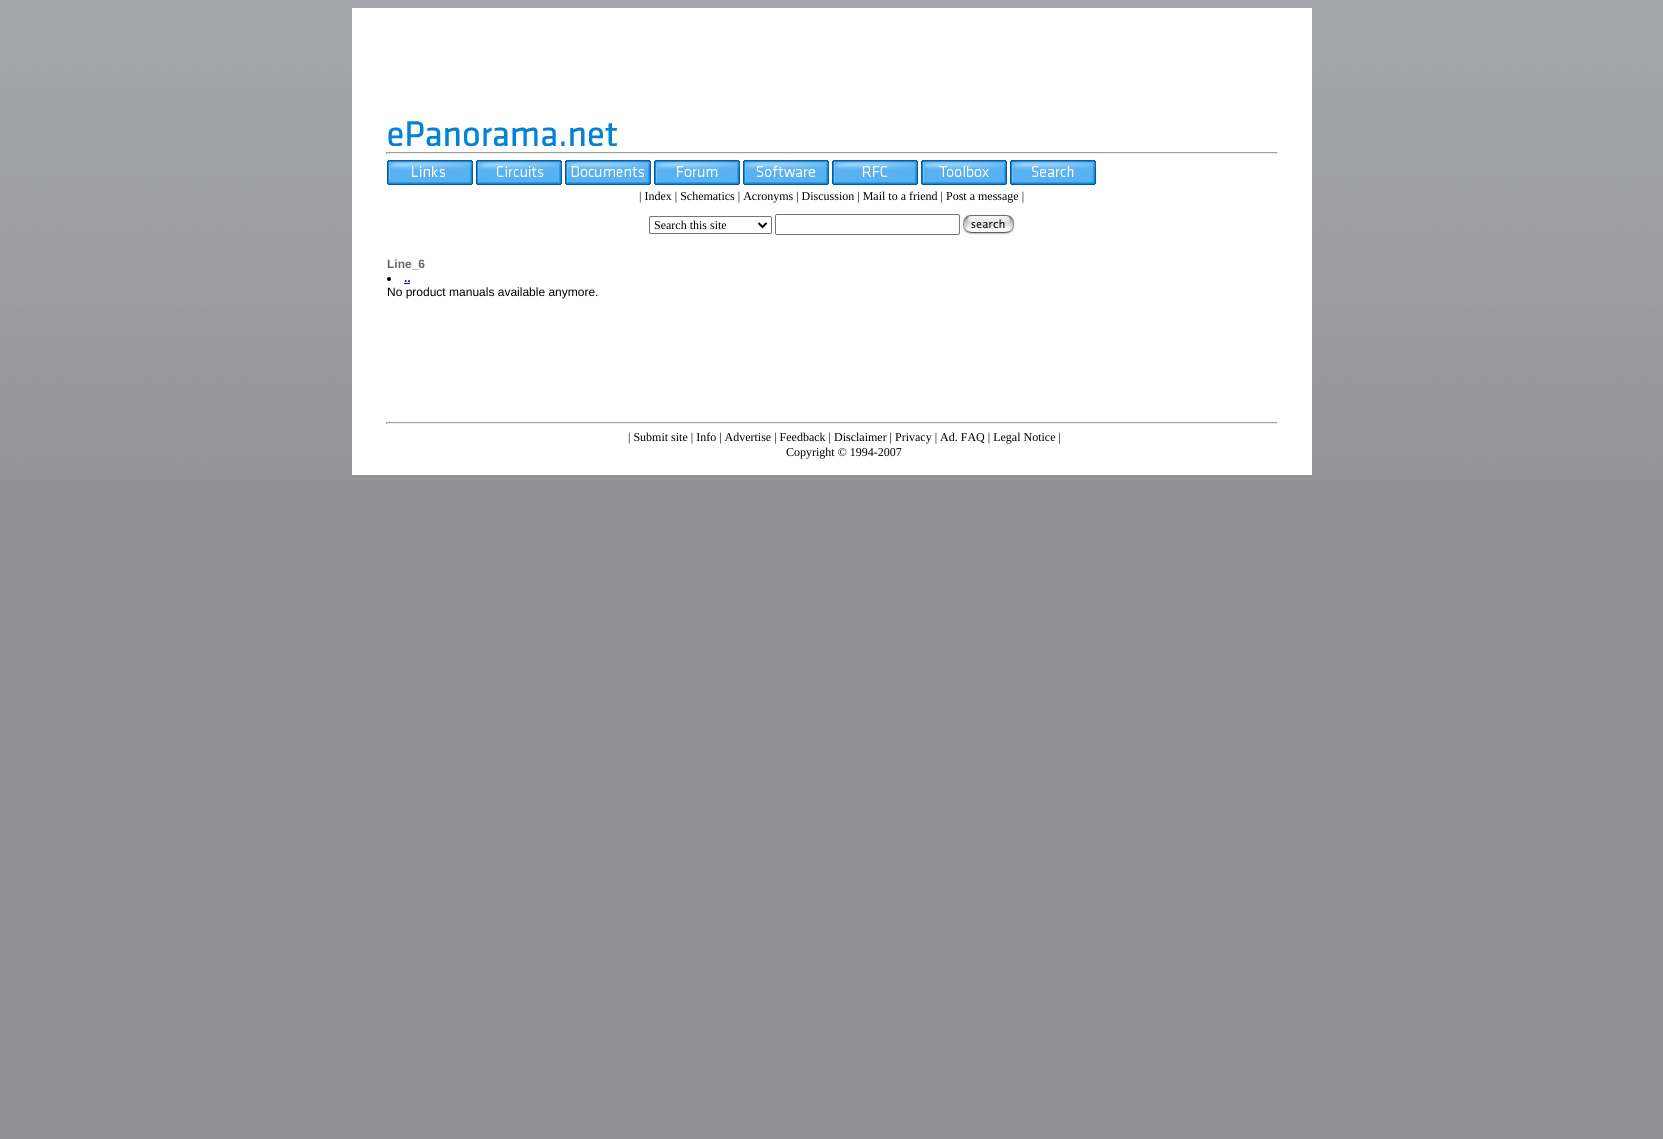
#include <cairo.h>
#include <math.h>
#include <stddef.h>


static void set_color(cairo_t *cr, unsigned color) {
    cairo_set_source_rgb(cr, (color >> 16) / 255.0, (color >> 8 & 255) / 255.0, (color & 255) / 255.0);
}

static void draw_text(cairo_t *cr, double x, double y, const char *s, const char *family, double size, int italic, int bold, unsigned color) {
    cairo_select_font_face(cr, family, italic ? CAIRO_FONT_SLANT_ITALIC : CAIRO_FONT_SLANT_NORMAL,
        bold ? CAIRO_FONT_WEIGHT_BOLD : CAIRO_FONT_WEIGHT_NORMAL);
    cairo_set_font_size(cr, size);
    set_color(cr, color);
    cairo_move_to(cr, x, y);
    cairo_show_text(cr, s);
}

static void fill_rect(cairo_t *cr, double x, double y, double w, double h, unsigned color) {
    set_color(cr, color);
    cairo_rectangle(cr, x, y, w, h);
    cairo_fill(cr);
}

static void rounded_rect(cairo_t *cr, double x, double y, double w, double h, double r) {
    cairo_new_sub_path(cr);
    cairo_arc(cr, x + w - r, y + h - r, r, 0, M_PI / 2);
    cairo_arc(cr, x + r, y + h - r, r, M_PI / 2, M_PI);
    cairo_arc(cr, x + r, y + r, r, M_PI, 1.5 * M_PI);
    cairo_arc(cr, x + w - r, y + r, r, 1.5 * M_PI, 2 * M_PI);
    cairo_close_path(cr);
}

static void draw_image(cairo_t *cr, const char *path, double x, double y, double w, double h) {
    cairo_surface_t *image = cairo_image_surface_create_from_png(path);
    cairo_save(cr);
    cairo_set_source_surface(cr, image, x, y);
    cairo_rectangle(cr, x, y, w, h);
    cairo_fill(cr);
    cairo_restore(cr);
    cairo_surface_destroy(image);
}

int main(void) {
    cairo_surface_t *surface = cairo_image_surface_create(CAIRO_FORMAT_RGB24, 1663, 1139);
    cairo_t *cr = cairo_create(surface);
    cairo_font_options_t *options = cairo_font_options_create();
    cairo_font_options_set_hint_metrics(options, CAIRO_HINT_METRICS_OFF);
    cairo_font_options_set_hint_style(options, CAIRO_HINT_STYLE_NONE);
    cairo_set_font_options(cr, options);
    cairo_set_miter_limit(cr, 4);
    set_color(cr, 0x908F94);
    cairo_paint(cr);
    draw_image(cr, "assets/img1.png", 0, 0, 1663, 480);
    fill_rect(cr, 352, 8, 960, 467, 0xFFFFFF);
    draw_image(cr, "assets/img2.png", 387, 121, 230, 25);
    fill_rect(cr, 386, 152, 892, 1, 0x9F9F9F);
    fill_rect(cr, 1277, 152, 1, 2, 0xEEEEEE);
    fill_rect(cr, 386, 153, 892, 1, 0xEEEEEE);
    fill_rect(cr, 386, 152, 1, 2, 0x9F9F9F);
    draw_image(cr, "assets/img3.png", 387, 160, 86, 25);
    draw_image(cr, "assets/img4.png", 476, 160, 86, 25);
    draw_image(cr, "assets/img5.png", 565, 160, 86, 25);
    draw_image(cr, "assets/img6.png", 654, 160, 86, 25);
    draw_image(cr, "assets/img7.png", 743, 160, 86, 25);
    draw_image(cr, "assets/img8.png", 832, 160, 86, 25);
    draw_image(cr, "assets/img9.png", 921, 160, 86, 25);
    draw_image(cr, "assets/img10.png", 1010, 160, 86, 25);
    draw_text(cr, 639, 200, "| Index | Schematics | Acronyms | Discussion | Mail to a friend | Post a message |", "Liberation Serif", 12, 0, 0, 0x000000);
    rounded_rect(cr, 649.5, 216.5, 122, 17, 1.5);
    set_color(cr, 0x767676);
    cairo_set_line_width(cr, 1);
    cairo_stroke(cr);
    cairo_new_path(cr);
    cairo_move_to(cr, 758.5, 223);
    cairo_line_to(cr, 762.5, 227);
    cairo_line_to(cr, 766.5, 223);
    set_color(cr, 0x000000);
    cairo_set_line_width(cr, 2);
    cairo_stroke(cr);
    draw_text(cr, 654, 229, "Search this site", "Liberation Serif", 12, 0, 0, 0x000000);
    rounded_rect(cr, 775.5, 214.5, 184, 20, 1.5);
    set_color(cr, 0x767676);
    cairo_set_line_width(cr, 1);
    cairo_stroke(cr);
    draw_image(cr, "assets/img11.png", 963, 214, 52, 21);
    draw_text(cr, 387, 268, "Line_6", "Liberation Sans", 12, 0, 1, 0x666666);
    set_color(cr, 0x000000);
    cairo_new_path(cr);
    cairo_arc(cr, 389, 279, 2, 0, 2 * M_PI);
    cairo_fill(cr);
    draw_text(cr, 404, 282, "..", "Liberation Sans", 12, 0, 1, 0x0000EE);
    fill_rect(cr, 404, 283, 6, 1, 0x0000EE);
    draw_text(cr, 387, 296, "No product manuals available anymore.", "Liberation Sans", 12, 0, 0, 0x000000);
    fill_rect(cr, 386, 422, 892, 1, 0x9F9F9F);
    fill_rect(cr, 1277, 422, 1, 2, 0xEEEEEE);
    fill_rect(cr, 386, 423, 892, 1, 0xEEEEEE);
    fill_rect(cr, 386, 422, 1, 2, 0x9F9F9F);
    draw_text(cr, 628, 441, "| Submit site | Info | Advertise | Feedback | Disclaimer | Privacy | Ad. FAQ | Legal Notice |", "Liberation Serif", 12, 0, 0, 0x000000);
    draw_text(cr, 786, 456, "Copyright © 1994-2007", "Liberation Serif", 12, 0, 0, 0x000000);
    cairo_surface_write_to_png(surface, "output.png");
    cairo_font_options_destroy(options);
    cairo_destroy(cr);
    cairo_surface_destroy(surface);
    return 0;
}
